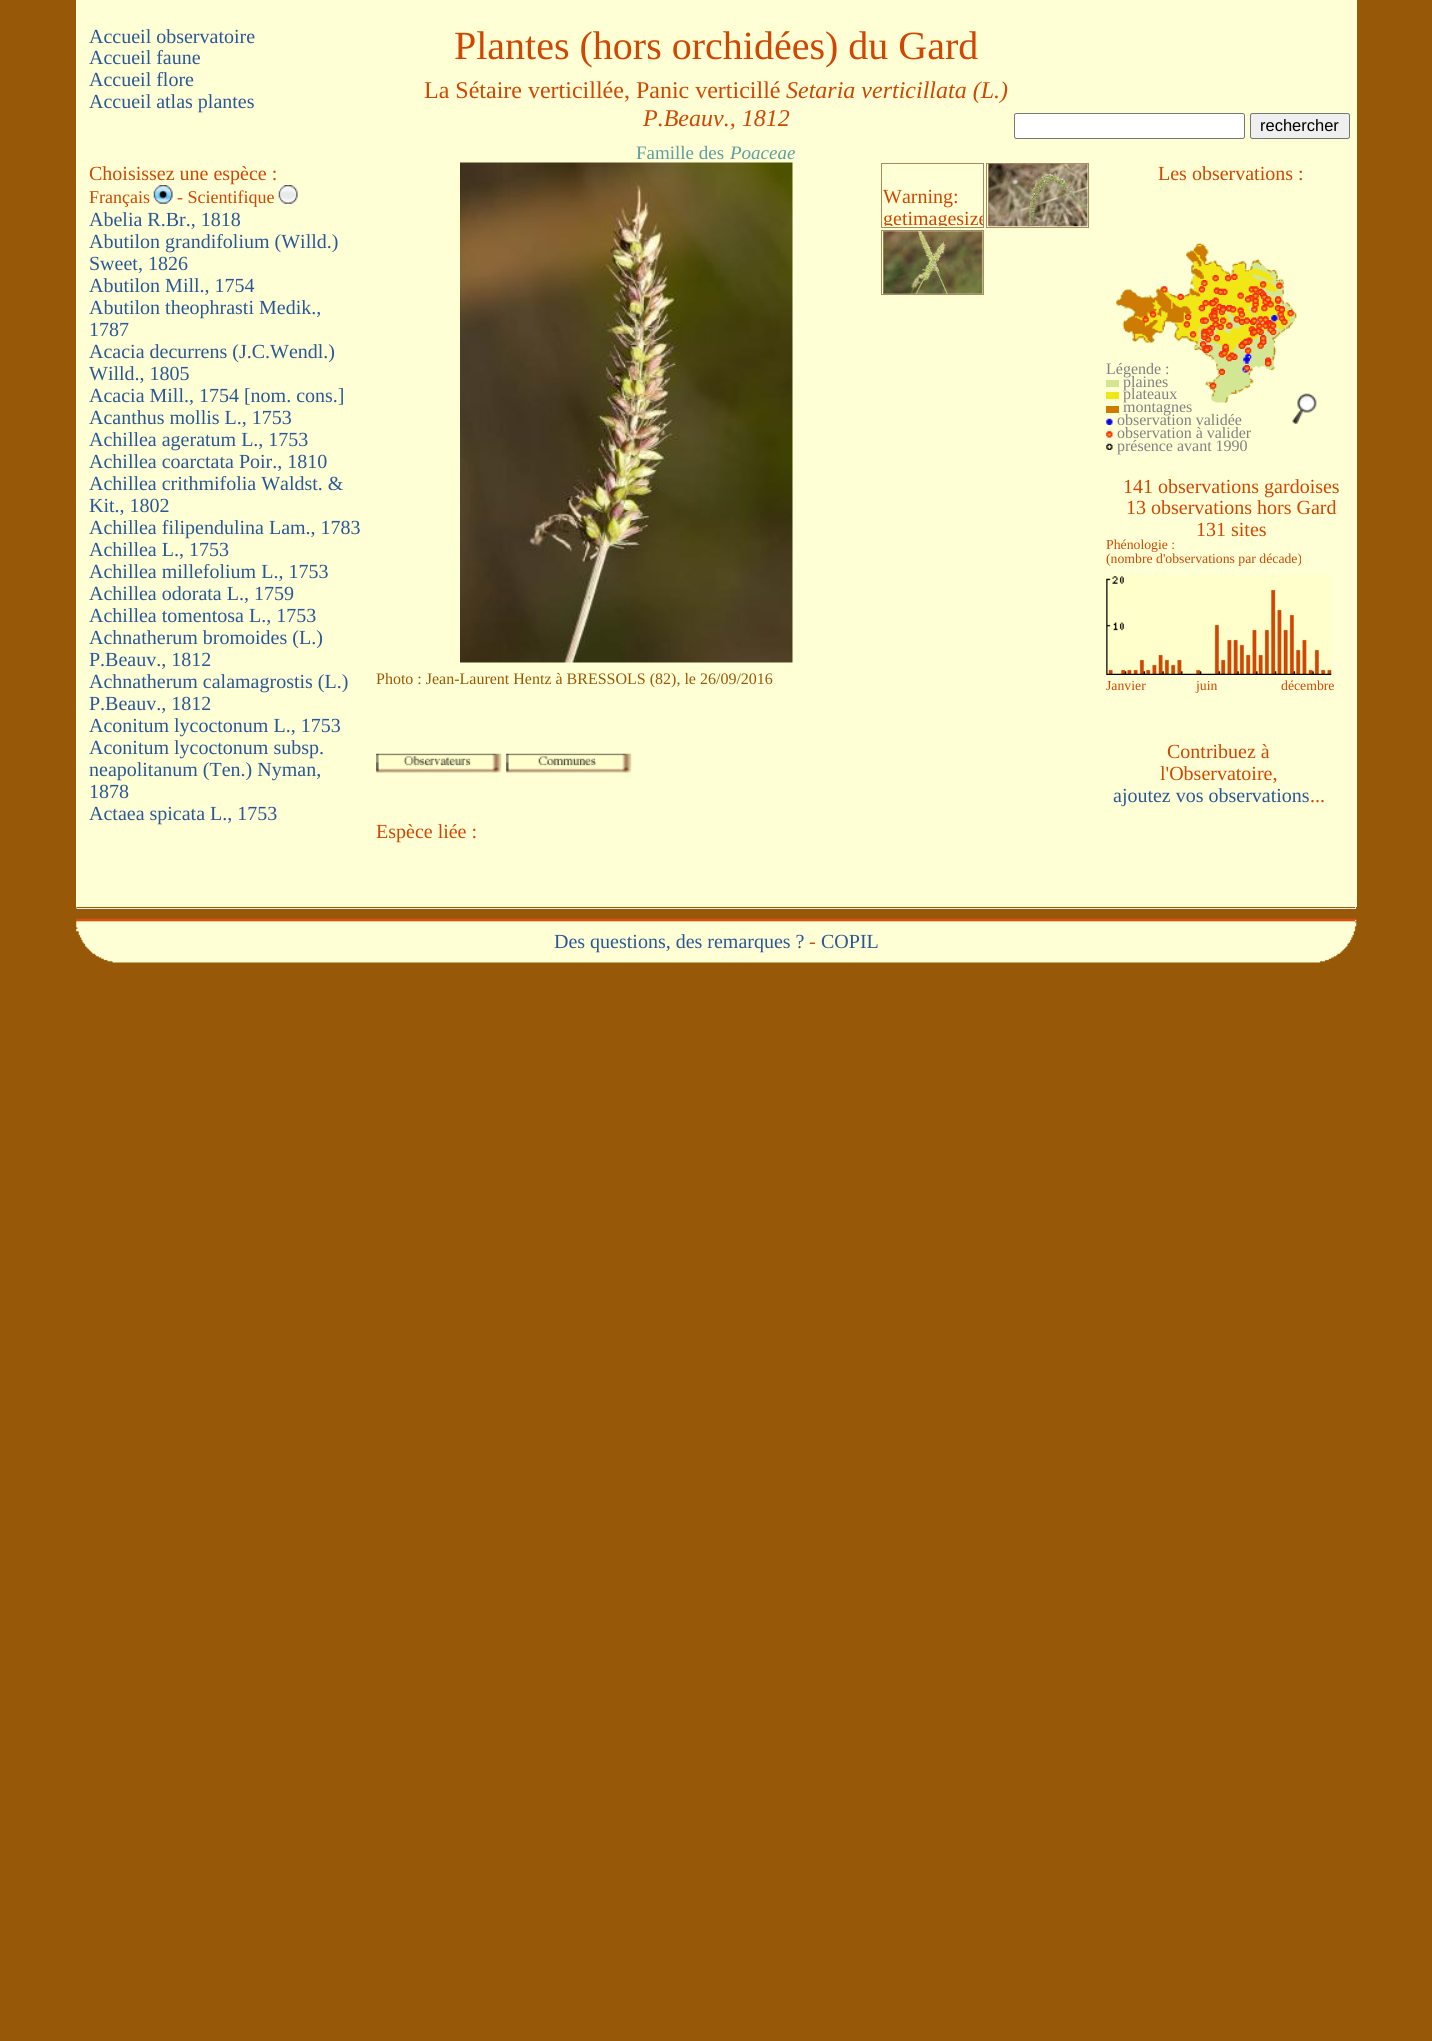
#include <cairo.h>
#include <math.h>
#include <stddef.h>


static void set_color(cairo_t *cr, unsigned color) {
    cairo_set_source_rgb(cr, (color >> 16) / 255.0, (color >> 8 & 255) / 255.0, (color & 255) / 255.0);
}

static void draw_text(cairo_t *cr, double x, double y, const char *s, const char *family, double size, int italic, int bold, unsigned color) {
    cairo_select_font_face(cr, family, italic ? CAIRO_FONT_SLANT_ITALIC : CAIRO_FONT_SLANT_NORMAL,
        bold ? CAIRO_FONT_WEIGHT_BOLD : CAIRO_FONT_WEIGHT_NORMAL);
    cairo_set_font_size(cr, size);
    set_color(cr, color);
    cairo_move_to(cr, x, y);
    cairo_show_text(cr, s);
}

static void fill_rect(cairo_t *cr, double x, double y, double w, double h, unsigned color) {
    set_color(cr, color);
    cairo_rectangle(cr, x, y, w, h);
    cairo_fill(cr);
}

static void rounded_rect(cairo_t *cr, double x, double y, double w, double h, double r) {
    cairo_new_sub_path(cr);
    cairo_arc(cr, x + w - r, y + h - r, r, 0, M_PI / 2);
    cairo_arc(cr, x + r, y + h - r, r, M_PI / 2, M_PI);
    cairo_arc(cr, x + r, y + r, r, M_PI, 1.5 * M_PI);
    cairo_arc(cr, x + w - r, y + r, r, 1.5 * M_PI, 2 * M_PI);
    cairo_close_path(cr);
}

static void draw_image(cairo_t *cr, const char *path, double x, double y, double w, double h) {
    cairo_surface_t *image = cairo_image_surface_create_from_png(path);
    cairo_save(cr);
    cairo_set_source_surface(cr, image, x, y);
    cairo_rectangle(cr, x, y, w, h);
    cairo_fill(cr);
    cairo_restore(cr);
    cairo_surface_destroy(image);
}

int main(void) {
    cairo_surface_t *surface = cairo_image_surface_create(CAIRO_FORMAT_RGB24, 1432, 2041);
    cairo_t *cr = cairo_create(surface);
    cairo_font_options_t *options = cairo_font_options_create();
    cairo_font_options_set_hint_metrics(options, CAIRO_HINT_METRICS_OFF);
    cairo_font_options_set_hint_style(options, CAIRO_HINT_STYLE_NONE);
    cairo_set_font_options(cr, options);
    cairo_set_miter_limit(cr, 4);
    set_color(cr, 0x975807);
    cairo_paint(cr);
    fill_rect(cr, 1355, 906, 1, 3, 0xEEEEEE);
    fill_rect(cr, 76, 908, 1280, 1, 0xEEEEEE);
    fill_rect(cr, 76, 906, 1, 3, 0x9F9F9F);
    fill_rect(cr, 76, 0, 1281, 907, 0xFFFFD5);
    draw_text(cr, 89, 43, "Accueil observatoire", "Liberation Serif", 20, 0, 0, 0x2A5897);
    draw_text(cr, 89, 64, "Accueil faune", "Liberation Serif", 20, 0, 0, 0x2A5897);
    draw_text(cr, 89, 86, "Accueil flore", "Liberation Serif", 20, 0, 0, 0x2A5897);
    draw_text(cr, 89, 108, "Accueil atlas plantes", "Liberation Serif", 20, 0, 0, 0x2A5897);
    draw_text(cr, 454, 59, "Plantes (hors orchidées) du Gard", "Liberation Serif", 40, 0, 0, 0xD04602);
    draw_text(cr, 424, 98, "La Sétaire verticillée, Panic verticillé", "Liberation Serif", 24, 0, 0, 0xD04602);
    draw_text(cr, 786, 98, "Setaria verticillata (L.)", "Liberation Serif", 24, 1, 0, 0xD04602);
    draw_text(cr, 643, 126, "P.Beauv., 1812", "Liberation Serif", 24, 1, 0, 0xD04602);
    draw_text(cr, 636, 159, "Famille des", "Liberation Serif", 19, 0, 0, 0x5F9EA0);
    draw_text(cr, 730, 159, "Poaceae", "Liberation Serif", 19, 1, 0, 0x5F9EA0);
    set_color(cr, 0xFFFFFF);
    rounded_rect(cr, 1014.5, 113.5, 230, 25, 2);
    cairo_fill_preserve(cr);
    set_color(cr, 0x767676);
    cairo_set_line_width(cr, 1);
    cairo_stroke(cr);
    set_color(cr, 0xEFEFEF);
    rounded_rect(cr, 1250.5, 113.5, 99, 25, 2);
    cairo_fill_preserve(cr);
    set_color(cr, 0x767676);
    cairo_stroke(cr);
    draw_text(cr, 1260, 131, "rechercher", "Liberation Sans", 16.5, 0, 0, 0x000000);
    draw_text(cr, 89, 180, "Choisissez une espèce :", "Liberation Serif", 20, 0, 0, 0xD04602);
    draw_text(cr, 89, 203, "Français", "Liberation Serif", 18, 0, 0, 0xD04602);
    draw_image(cr, "assets/img1.png", 153, 185, 20, 19);
    draw_text(cr, 177, 203, "- Scientifique", "Liberation Serif", 18, 0, 0, 0xD04602);
    draw_image(cr, "assets/img2.png", 278, 185, 20, 19);
    draw_text(cr, 89, 226, "Abelia R.Br., 1818", "Liberation Serif", 20, 0, 0, 0x2A5897);
    draw_text(cr, 89, 248, "Abutilon grandifolium (Willd.)", "Liberation Serif", 20, 0, 0, 0x2A5897);
    draw_text(cr, 89, 270, "Sweet, 1826", "Liberation Serif", 20, 0, 0, 0x2A5897);
    draw_text(cr, 89, 292, "Abutilon Mill., 1754", "Liberation Serif", 20, 0, 0, 0x2A5897);
    draw_text(cr, 89, 314, "Abutilon theophrasti Medik.,", "Liberation Serif", 20, 0, 0, 0x2A5897);
    draw_text(cr, 89, 336, "1787", "Liberation Serif", 20, 0, 0, 0x2A5897);
    draw_text(cr, 89, 358, "Acacia decurrens (J.C.Wendl.)", "Liberation Serif", 20, 0, 0, 0x2A5897);
    draw_text(cr, 89, 380, "Willd., 1805", "Liberation Serif", 20, 0, 0, 0x2A5897);
    draw_text(cr, 89, 402, "Acacia Mill., 1754 [nom. cons.]", "Liberation Serif", 20, 0, 0, 0x2A5897);
    draw_text(cr, 89, 424, "Acanthus mollis L., 1753", "Liberation Serif", 20, 0, 0, 0x2A5897);
    draw_text(cr, 89, 446, "Achillea ageratum L., 1753", "Liberation Serif", 20, 0, 0, 0x2A5897);
    draw_text(cr, 89, 468, "Achillea coarctata Poir., 1810", "Liberation Serif", 20, 0, 0, 0x2A5897);
    draw_text(cr, 89, 490, "Achillea crithmifolia Waldst. &", "Liberation Serif", 20, 0, 0, 0x2A5897);
    draw_text(cr, 89, 512, "Kit., 1802", "Liberation Serif", 20, 0, 0, 0x2A5897);
    draw_text(cr, 89, 534, "Achillea filipendulina Lam., 1783", "Liberation Serif", 20, 0, 0, 0x2A5897);
    draw_text(cr, 89, 556, "Achillea L., 1753", "Liberation Serif", 20, 0, 0, 0x2A5897);
    draw_text(cr, 89, 578, "Achillea millefolium L., 1753", "Liberation Serif", 20, 0, 0, 0x2A5897);
    draw_text(cr, 89, 600, "Achillea odorata L., 1759", "Liberation Serif", 20, 0, 0, 0x2A5897);
    draw_text(cr, 89, 622, "Achillea tomentosa L., 1753", "Liberation Serif", 20, 0, 0, 0x2A5897);
    draw_text(cr, 89, 644, "Achnatherum bromoides (L.)", "Liberation Serif", 20, 0, 0, 0x2A5897);
    draw_text(cr, 89, 666, "P.Beauv., 1812", "Liberation Serif", 20, 0, 0, 0x2A5897);
    draw_text(cr, 89, 688, "Achnatherum calamagrostis (L.)", "Liberation Serif", 20, 0, 0, 0x2A5897);
    draw_text(cr, 89, 710, "P.Beauv., 1812", "Liberation Serif", 20, 0, 0, 0x2A5897);
    draw_text(cr, 89, 732, "Aconitum lycoctonum L., 1753", "Liberation Serif", 20, 0, 0, 0x2A5897);
    draw_text(cr, 89, 754, "Aconitum lycoctonum subsp.", "Liberation Serif", 20, 0, 0, 0x2A5897);
    draw_text(cr, 89, 776, "neapolitanum (Ten.) Nyman,", "Liberation Serif", 20, 0, 0, 0x2A5897);
    draw_text(cr, 89, 798, "1878", "Liberation Serif", 20, 0, 0, 0x2A5897);
    draw_text(cr, 89, 820, "Actaea spicata L., 1753", "Liberation Serif", 20, 0, 0, 0x2A5897);
    draw_image(cr, "assets/img3.png", 460, 162, 333, 501);
    cairo_rectangle(cr, 881.5, 163.5, 102, 64);
    set_color(cr, 0xA98A5F);
    cairo_stroke(cr);
    draw_text(cr, 883, 203, "Warning:", "Liberation Serif", 20, 0, 0, 0xD04602);
    cairo_save(cr);
    cairo_rectangle(cr, 883, 164, 100, 62);
    cairo_clip(cr);
    draw_text(cr, 883, 225, "getimagesize", "Liberation Serif", 20, 0, 0, 0xD04602);
    cairo_restore(cr);
    cairo_rectangle(cr, 986.5, 163.5, 102, 64);
    set_color(cr, 0xA98A5F);
    cairo_stroke(cr);
    cairo_save(cr);
    cairo_rectangle(cr, 988, 164, 100, 62);
    cairo_clip(cr);
    cairo_rectangle(cr, 988.5, 161.5, 101, 68);
    cairo_stroke(cr);
    cairo_restore(cr);
    draw_image(cr, "assets/img4.png", 988, 163, 100, 64);
    cairo_rectangle(cr, 881.5, 230.5, 102, 64);
    cairo_stroke(cr);
    cairo_save(cr);
    cairo_rectangle(cr, 883, 231, 100, 63);
    cairo_clip(cr);
    cairo_rectangle(cr, 883.5, 229.5, 101, 68);
    cairo_stroke(cr);
    cairo_restore(cr);
    draw_image(cr, "assets/img5.png", 883, 231, 100, 63);
    draw_text(cr, 376, 684, "Photo : Jean-Laurent Hentz à BRESSOLS (82), le 26/09/2016", "Liberation Serif", 16, 0, 0, 0x975807);
    draw_image(cr, "assets/img6.png", 376, 753, 126, 20);
    draw_image(cr, "assets/img7.png", 506, 753, 126, 20);
    draw_text(cr, 376, 838, "Espèce liée :", "Liberation Serif", 20, 0, 0, 0xD04602);
    draw_text(cr, 1158, 180, "Les observations :", "Liberation Serif", 20, 0, 0, 0xD04602);
    draw_text(cr, 1106, 374, "Légende :", "Liberation Serif", 16, 0, 0, 0x808183);
    fill_rect(cr, 1106, 380, 13, 7, 0xD3E694);
    draw_text(cr, 1123, 387, "plaines", "Liberation Serif", 16, 0, 0, 0x808183);
    fill_rect(cr, 1106, 392, 13, 7, 0xF1E616);
    draw_text(cr, 1123, 399, "plateaux", "Liberation Serif", 16, 0, 0, 0x808183);
    draw_image(cr, "assets/img8.png", 1116, 243, 181, 160);
    draw_image(cr, "assets/img9.png", 1212, 275, 7, 7);
    draw_image(cr, "assets/img10.png", 1225, 275, 7, 7);
    draw_image(cr, "assets/img11.png", 1231, 273, 7, 7);
    draw_image(cr, "assets/img12.png", 1161, 286, 7, 7);
    draw_image(cr, "assets/img13.png", 1201, 280, 7, 7);
    draw_image(cr, "assets/img14.png", 1260, 281, 7, 7);
    draw_image(cr, "assets/img15.png", 1276, 282, 7, 7);
    draw_image(cr, "assets/img16.png", 1198, 286, 7, 7);
    draw_image(cr, "assets/img17.png", 1213, 287, 7, 7);
    draw_image(cr, "assets/img19.png", 1222, 288, 6, 7);
    draw_image(cr, "assets/img18.png", 1217, 288, 7, 7);
    draw_image(cr, "assets/img20.png", 1248, 286, 6, 7);
    draw_image(cr, "assets/img22.png", 1257, 288, 7, 7);
    draw_image(cr, "assets/img44.png", 1252, 302, 7, 6);
    draw_image(cr, "assets/img31.png", 1252, 297, 7, 7);
    draw_image(cr, "assets/img27.png", 1247, 295, 7, 7);
    draw_image(cr, "assets/img25.png", 1252, 292, 7, 7);
    draw_image(cr, "assets/img21.png", 1252, 286, 7, 7);
    draw_image(cr, "assets/img23.png", 1177, 293, 7, 7);
    draw_image(cr, "assets/img24.png", 1237, 292, 7, 7);
    draw_image(cr, "assets/img26.png", 1260, 291, 7, 7);
    draw_image(cr, "assets/img28.png", 1261, 293, 7, 7);
    draw_image(cr, "assets/img29.png", 1212, 297, 7, 7);
    draw_image(cr, "assets/img30.png", 1245, 296, 7, 7);
    draw_image(cr, "assets/img39.png", 1266, 301, 6, 6);
    draw_image(cr, "assets/img45.png", 1267, 301, 7, 7);
    draw_image(cr, "assets/img36.png", 1262, 298, 7, 7);
    draw_image(cr, "assets/img32.png", 1265, 296, 7, 7);
    draw_image(cr, "assets/img37.png", 1275, 297, 7, 7);
    draw_image(cr, "assets/img33.png", 1275, 296, 7, 7);
    draw_image(cr, "assets/img35.png", 1208, 300, 7, 7);
    draw_image(cr, "assets/img40.png", 1198, 305, 7, 7);
    draw_image(cr, "assets/img34.png", 1202, 300, 7, 7);
    draw_image(cr, "assets/img41.png", 1216, 303, 7, 7);
    draw_image(cr, "assets/img38.png", 1210, 300, 7, 7);
    draw_image(cr, "assets/img43.png", 1226, 305, 7, 7);
    draw_image(cr, "assets/img46.png", 1226, 305, 7, 7);
    draw_image(cr, "assets/img42.png", 1220, 305, 7, 7);
    draw_image(cr, "assets/img48.png", 1226, 305, 7, 7);
    draw_image(cr, "assets/img55.png", 1218, 309, 7, 6);
    draw_image(cr, "assets/img47.png", 1220, 306, 7, 7);
    draw_image(cr, "assets/img49.png", 1230, 306, 7, 7);
    draw_image(cr, "assets/img50.png", 1251, 306, 7, 7);
    draw_image(cr, "assets/img51.png", 1261, 305, 7, 7);
    draw_image(cr, "assets/img66.png", 1271, 315, 7, 7);
    draw_image(cr, "assets/img67.png", 1278, 315, 7, 7);
    draw_image(cr, "assets/img60.png", 1277, 311, 7, 7);
    draw_image(cr, "assets/img53.png", 1278, 306, 7, 7);
    draw_image(cr, "assets/img52.png", 1275, 305, 7, 7);
    draw_image(cr, "assets/img54.png", 1211, 307, 7, 6);
    draw_image(cr, "assets/img29.png", 1237, 307, 7, 7);
    draw_image(cr, "assets/img56.png", 1278, 306, 7, 7);
    draw_image(cr, "assets/img57.png", 1150, 311, 7, 7);
    draw_image(cr, "assets/img58.png", 1211, 310, 7, 6);
    draw_image(cr, "assets/img76.png", 1243, 317, 7, 7);
    draw_image(cr, "assets/img75.png", 1238, 318, 7, 7);
    draw_image(cr, "assets/img69.png", 1233, 316, 7, 7);
    draw_image(cr, "assets/img59.png", 1238, 311, 7, 7);
    draw_image(cr, "assets/img61.png", 1287, 310, 7, 7);
    draw_image(cr, "assets/img73.png", 1210, 317, 4, 5);
    draw_image(cr, "assets/img45.png", 1212, 316, 7, 7);
    draw_image(cr, "assets/img62.png", 1208, 312, 6, 7);
    draw_image(cr, "assets/img63.png", 1142, 316, 7, 7);
    draw_image(cr, "assets/img64.png", 1185, 313, 7, 7);
    draw_image(cr, "assets/img65.png", 1211, 312, 7, 7);
    draw_image(cr, "assets/img68.png", 1200, 317, 6, 7);
    draw_image(cr, "assets/img85.png", 1263, 321, 6, 7);
    draw_image(cr, "assets/img70.png", 1257, 316, 7, 7);
    draw_image(cr, "assets/img81.png", 1266, 320, 7, 7);
    draw_image(cr, "assets/img80.png", 1250, 318, 7, 7);
    draw_image(cr, "assets/img77.png", 1251, 317, 7, 7);
    draw_image(cr, "assets/img99.png", 1257, 328, 7, 7);
    draw_image(cr, "assets/img90.png", 1262, 322, 7, 7);
    draw_image(cr, "assets/img89.png", 1248, 326, 7, 7);
    draw_image(cr, "assets/img96.png", 1250, 328, 7, 7);
    draw_image(cr, "assets/img84.png", 1256, 322, 7, 7);
    draw_image(cr, "assets/img100.png", 1270, 328, 7, 7);
    draw_image(cr, "assets/img93.png", 1267, 326, 7, 7);
    draw_image(cr, "assets/img86.png", 1267, 321, 7, 7);
    draw_image(cr, "assets/img71.png", 1262, 316, 7, 7);
    draw_image(cr, "assets/img72.png", 1202, 317, 7, 7);
    draw_image(cr, "assets/img83.png", 1226, 322, 7, 7);
    draw_image(cr, "assets/img74.png", 1220, 317, 7, 7);
    draw_image(cr, "assets/img78.png", 1183, 321, 7, 7);
    draw_image(cr, "assets/img92.png", 1206, 327, 7, 7);
    draw_image(cr, "assets/img103.png", 1207, 331, 7, 6);
    draw_image(cr, "assets/img87.png", 1208, 325, 7, 7);
    draw_image(cr, "assets/img95.png", 1206, 327, 7, 7);
    draw_image(cr, "assets/img79.png", 1212, 321, 7, 7);
    draw_image(cr, "assets/img82.png", 1281, 318, 7, 7);
    draw_image(cr, "assets/img88.png", 1217, 323, 7, 7);
    draw_image(cr, "assets/img91.png", 1270, 322, 7, 7);
    draw_image(cr, "assets/img94.png", 1201, 328, 7, 6);
    draw_image(cr, "assets/img104.png", 1250, 330, 7, 7);
    draw_image(cr, "assets/img97.png", 1255, 327, 7, 7);
    draw_image(cr, "assets/img98.png", 1251, 328, 7, 7);
    draw_image(cr, "assets/img101.png", 1190, 331, 7, 7);
    draw_image(cr, "assets/img106.png", 1205, 336, 7, 7);
    draw_image(cr, "assets/img105.png", 1201, 334, 7, 6);
    draw_image(cr, "assets/img102.png", 1201, 331, 7, 7);
    draw_image(cr, "assets/img107.png", 1213, 335, 7, 7);
    draw_image(cr, "assets/img109.png", 1246, 337, 7, 7);
    draw_image(cr, "assets/img116.png", 1238, 342, 7, 7);
    draw_image(cr, "assets/img135.png", 1245, 353, 7, 7);
    draw_image(cr, "assets/img129.png", 1245, 347, 7, 7);
    draw_image(cr, "assets/img114.png", 1240, 341, 7, 7);
    draw_image(cr, "assets/img111.png", 1246, 338, 6, 7);
    draw_image(cr, "assets/img119.png", 1238, 342, 7, 7);
    draw_image(cr, "assets/img108.png", 1242, 338, 7, 7);
    draw_image(cr, "assets/img112.png", 1260, 339, 7, 6);
    draw_image(cr, "assets/img115.png", 1260, 339, 7, 6);
    draw_image(cr, "assets/img110.png", 1260, 335, 7, 7);
    draw_image(cr, "assets/img117.png", 1203, 345, 6, 7);
    draw_image(cr, "assets/img122.png", 1206, 345, 7, 7);
    draw_image(cr, "assets/img121.png", 1202, 346, 7, 7);
    draw_image(cr, "assets/img123.png", 1202, 346, 7, 7);
    draw_image(cr, "assets/img113.png", 1200, 341, 7, 7);
    draw_image(cr, "assets/img127.png", 1222, 347, 7, 6);
    draw_image(cr, "assets/img128.png", 1222, 347, 7, 6);
    draw_image(cr, "assets/img118.png", 1222, 343, 7, 7);
    draw_image(cr, "assets/img120.png", 1257, 342, 7, 7);
    draw_image(cr, "assets/img124.png", 1203, 346, 7, 7);
    draw_image(cr, "assets/img125.png", 1203, 347, 7, 6);
    draw_image(cr, "assets/img126.png", 1205, 347, 5, 6);
    draw_image(cr, "assets/img131.png", 1218, 351, 7, 7);
    draw_image(cr, "assets/img134.png", 1232, 353, 6, 7);
    draw_image(cr, "assets/img132.png", 1228, 352, 7, 7);
    draw_image(cr, "assets/img133.png", 1226, 355, 7, 7);
    draw_image(cr, "assets/img130.png", 1221, 350, 7, 7);
    draw_image(cr, "assets/img139.png", 1243, 357, 7, 7);
    draw_image(cr, "assets/img136.png", 1243, 356, 7, 7);
    draw_image(cr, "assets/img137.png", 1243, 356, 7, 7);
    draw_image(cr, "assets/img138.png", 1243, 356, 7, 7);
    draw_image(cr, "assets/img140.png", 1265, 357, 7, 6);
    draw_image(cr, "assets/img141.png", 1265, 360, 7, 7);
    draw_image(cr, "assets/img142.png", 1265, 360, 7, 7);
    draw_image(cr, "assets/img146.png", 1242, 366, 7, 7);
    draw_image(cr, "assets/img143.png", 1243, 365, 7, 7);
    draw_image(cr, "assets/img144.png", 1243, 365, 7, 7);
    draw_image(cr, "assets/img145.png", 1218, 368, 7, 7);
    draw_image(cr, "assets/img147.png", 1210, 382, 7, 7);
    fill_rect(cr, 1106, 406, 13, 7, 0xCE7B04);
    draw_text(cr, 1123, 412, "montagnes", "Liberation Serif", 16, 0, 0, 0x808183);
    draw_image(cr, "assets/img148.png", 1106, 418, 7, 7);
    draw_text(cr, 1117, 425, "observation validée", "Liberation Serif", 16, 0, 0, 0x808183);
    draw_image(cr, "assets/img149.png", 1106, 431, 7, 7);
    draw_text(cr, 1117, 438, "observation à valider", "Liberation Serif", 16, 0, 0, 0x808183);
    draw_image(cr, "assets/img150.png", 1106, 443, 7, 7);
    draw_text(cr, 1117, 451, "présence avant 1990", "Liberation Serif", 16, 0, 0, 0x808183);
    draw_image(cr, "assets/img151.png", 1292, 393, 25, 31);
    draw_text(cr, 1123, 493, "141 observations gardoises", "Liberation Serif", 20, 0, 0, 0xD04602);
    draw_text(cr, 1126, 514, "13 observations hors Gard", "Liberation Serif", 20, 0, 0, 0xD04602);
    draw_text(cr, 1196, 536, "131 sites", "Liberation Serif", 20, 0, 0, 0xD04602);
    draw_text(cr, 1106, 549, "Phénologie :", "Liberation Serif", 13.75, 0, 0, 0xD04602);
    draw_text(cr, 1106, 563, "(nombre d'observations par décade)", "Liberation Serif", 13.75, 0, 0, 0xD04602);
    draw_text(cr, 1106, 690, "Janvier", "Liberation Serif", 13.75, 0, 0, 0xD04602);
    draw_text(cr, 1196, 690, "juin", "Liberation Serif", 13.75, 0, 0, 0xD04602);
    draw_text(cr, 1281, 690, "décembre", "Liberation Serif", 13.75, 0, 0, 0xD04602);
    draw_image(cr, "assets/img152.png", 1106, 575, 226, 100);
    draw_text(cr, 1167, 758, "Contribuez à", "Liberation Serif", 20, 0, 0, 0xD04602);
    draw_text(cr, 1160, 780, "l'Observatoire,", "Liberation Serif", 20, 0, 0, 0xD04602);
    draw_text(cr, 1113, 802, "ajoutez vos observations", "Liberation Serif", 20, 0, 0, 0x2A5897);
    draw_text(cr, 1310, 802, "...", "Liberation Serif", 20, 0, 0, 0xD04602);
    draw_image(cr, "assets/img153.png", 76, 918, 1281, 45);
    draw_text(cr, 554, 948, "Des questions, des remarques ?", "Liberation Serif", 20, 0, 0, 0x2A5897);
    draw_text(cr, 809, 948, "-", "Liberation Serif", 20, 0, 0, 0xD04602);
    draw_text(cr, 821, 948, "COPIL", "Liberation Serif", 20, 0, 0, 0x2A5897);
    cairo_surface_write_to_png(surface, "output.png");
    cairo_font_options_destroy(options);
    cairo_destroy(cr);
    cairo_surface_destroy(surface);
    return 0;
}
